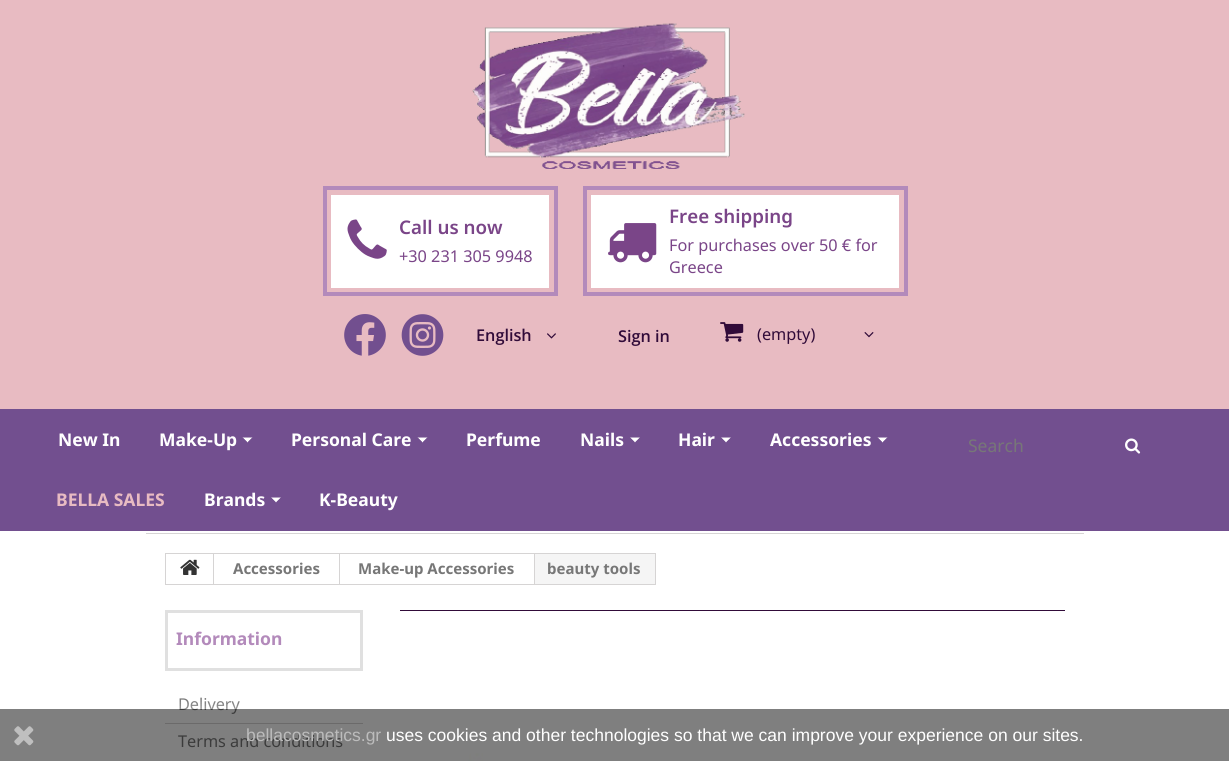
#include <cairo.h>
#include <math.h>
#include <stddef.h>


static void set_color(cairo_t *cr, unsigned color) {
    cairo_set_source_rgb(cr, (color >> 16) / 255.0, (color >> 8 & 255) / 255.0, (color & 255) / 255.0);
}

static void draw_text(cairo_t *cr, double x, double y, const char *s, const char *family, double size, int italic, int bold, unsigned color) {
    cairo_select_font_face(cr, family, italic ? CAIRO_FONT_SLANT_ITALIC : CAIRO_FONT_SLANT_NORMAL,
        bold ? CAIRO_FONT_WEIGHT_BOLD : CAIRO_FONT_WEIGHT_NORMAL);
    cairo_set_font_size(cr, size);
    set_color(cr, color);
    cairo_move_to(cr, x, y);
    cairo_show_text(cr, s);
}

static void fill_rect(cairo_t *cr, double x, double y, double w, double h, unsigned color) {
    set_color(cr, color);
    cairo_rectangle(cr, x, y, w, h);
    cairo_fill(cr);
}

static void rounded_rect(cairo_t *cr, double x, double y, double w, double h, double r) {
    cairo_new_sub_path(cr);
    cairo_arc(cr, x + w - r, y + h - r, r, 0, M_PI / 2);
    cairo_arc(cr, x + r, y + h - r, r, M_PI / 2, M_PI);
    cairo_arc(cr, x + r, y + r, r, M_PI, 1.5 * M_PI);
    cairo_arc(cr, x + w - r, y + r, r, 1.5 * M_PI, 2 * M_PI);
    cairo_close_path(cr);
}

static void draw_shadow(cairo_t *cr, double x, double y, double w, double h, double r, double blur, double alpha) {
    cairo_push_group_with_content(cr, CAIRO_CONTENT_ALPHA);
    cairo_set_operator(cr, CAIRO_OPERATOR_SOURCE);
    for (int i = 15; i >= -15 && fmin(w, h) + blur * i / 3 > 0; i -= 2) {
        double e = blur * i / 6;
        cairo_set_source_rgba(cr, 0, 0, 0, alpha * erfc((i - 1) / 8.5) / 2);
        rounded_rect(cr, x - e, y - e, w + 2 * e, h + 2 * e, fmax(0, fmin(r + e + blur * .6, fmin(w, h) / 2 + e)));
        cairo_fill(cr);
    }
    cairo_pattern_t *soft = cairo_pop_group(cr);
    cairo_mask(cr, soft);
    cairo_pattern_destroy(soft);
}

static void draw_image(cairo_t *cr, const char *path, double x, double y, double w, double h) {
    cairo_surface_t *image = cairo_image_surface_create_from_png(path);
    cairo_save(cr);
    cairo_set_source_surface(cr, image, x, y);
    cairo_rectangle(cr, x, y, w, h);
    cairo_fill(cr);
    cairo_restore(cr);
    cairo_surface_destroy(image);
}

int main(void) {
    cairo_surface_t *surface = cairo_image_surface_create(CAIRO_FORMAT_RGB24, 1229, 761);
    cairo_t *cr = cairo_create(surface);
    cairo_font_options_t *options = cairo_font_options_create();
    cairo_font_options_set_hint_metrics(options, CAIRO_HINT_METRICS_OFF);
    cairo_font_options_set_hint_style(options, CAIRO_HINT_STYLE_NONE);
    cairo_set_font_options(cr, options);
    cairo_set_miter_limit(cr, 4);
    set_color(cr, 0xFFFFFF);
    cairo_paint(cr);
    fill_rect(cr, 0, 0, 1229, 409, 0xE8BBC2);
    draw_image(cr, "assets/img1.png", 472, 23, 273, 146);
    cairo_rectangle(cr, 325, 188, 231, 106);
    set_color(cr, 0xB38ABB);
    cairo_set_line_width(cr, 4);
    cairo_stroke(cr);
    fill_rect(cr, 331, 195, 218, 93, 0xFFFFFF);
    draw_image(cr, "assets/img2.png", 347, 219, 40, 40);
    draw_text(cr, 399, 234, "Call us now", "Noto Sans SemiBold", 18.75, 0, 0, 0x7A4588);
    draw_text(cr, 399, 262, "+30 231 305 9948", "Noto Sans", 16.25, 0, 0, 0x7A4588);
    cairo_rectangle(cr, 585, 188, 321, 106);
    set_color(cr, 0xB38ABB);
    cairo_stroke(cr);
    fill_rect(cr, 591, 195, 308, 93, 0xFFFFFF);
    draw_image(cr, "assets/img3.png", 608, 223, 49, 40);
    draw_text(cr, 669, 223, "Free shipping", "Noto Sans SemiBold", 18.75, 0, 0, 0x7A4588);
    draw_text(cr, 669, 251, "For purchases over 50 € for", "Noto Sans", 16.25, 0, 0, 0x7A4588);
    draw_text(cr, 669, 273, "Greece", "Noto Sans", 16.25, 0, 0, 0x7A4588);
    draw_image(cr, "assets/img4.png", 344, 314, 42, 42);
    draw_image(cr, "assets/img5.png", 401, 314, 43, 42);
    draw_text(cr, 476, 341, "English", "Open Sans SemiBold", 16.25, 0, 0, 0x310B39);
    draw_image(cr, "assets/img6.png", 547, 333, 9, 6);
    draw_text(cr, 618, 342, "Sign in", "Open Sans SemiBold", 16.25, 0, 0, 0x310B39);
    draw_image(cr, "assets/img7.png", 720, 322, 24, 20);
    draw_text(cr, 757, 340, "(empty)", "Noto Sans", 16.25, 0, 0, 0x310B39);
    draw_image(cr, "assets/img8.png", 864, 332, 10, 6);
    fill_rect(cr, 0, 409, 1229, 122, 0x724F8F);
    draw_text(cr, 58, 446, "New In", "Noto Sans", 17.5, 0, 1, 0xFFFFFF);
    draw_text(cr, 159, 446, "Make-Up", "Noto Sans", 17.5, 0, 1, 0xFFFFFF);
    cairo_new_path(cr);
    cairo_move_to(cr, 242.5, 437.5);
    cairo_line_to(cr, 252.5, 437.5);
    cairo_line_to(cr, 247.5, 442.5);
    cairo_close_path(cr);
    cairo_fill(cr);
    set_color(cr, 0x724F8F);
    cairo_new_path(cr);
    cairo_move_to(cr, 252.5, 437.5);
    cairo_line_to(cr, 252.5, 442.5);
    cairo_line_to(cr, 247.5, 442.5);
    cairo_close_path(cr);
    cairo_fill(cr);
    cairo_new_path(cr);
    cairo_move_to(cr, 242.5, 442.5);
    cairo_line_to(cr, 242.5, 437.5);
    cairo_line_to(cr, 247.5, 442.5);
    cairo_close_path(cr);
    cairo_fill(cr);
    draw_text(cr, 291, 446, "Personal Care", "Noto Sans", 17.5, 0, 1, 0xFFFFFF);
    cairo_new_path(cr);
    cairo_move_to(cr, 417.5, 437.5);
    cairo_line_to(cr, 427.5, 437.5);
    cairo_line_to(cr, 422.5, 442.5);
    cairo_close_path(cr);
    cairo_fill(cr);
    set_color(cr, 0x724F8F);
    cairo_new_path(cr);
    cairo_move_to(cr, 427.5, 437.5);
    cairo_line_to(cr, 427.5, 442.5);
    cairo_line_to(cr, 422.5, 442.5);
    cairo_close_path(cr);
    cairo_fill(cr);
    cairo_new_path(cr);
    cairo_move_to(cr, 417.5, 442.5);
    cairo_line_to(cr, 417.5, 437.5);
    cairo_line_to(cr, 422.5, 442.5);
    cairo_close_path(cr);
    cairo_fill(cr);
    draw_text(cr, 466, 446, "Perfume", "Noto Sans", 17.5, 0, 1, 0xFFFFFF);
    draw_text(cr, 580, 446, "Nails", "Noto Sans", 17.5, 0, 1, 0xFFFFFF);
    cairo_new_path(cr);
    cairo_move_to(cr, 630, 437.5);
    cairo_line_to(cr, 640, 437.5);
    cairo_line_to(cr, 635, 442.5);
    cairo_close_path(cr);
    cairo_fill(cr);
    set_color(cr, 0x724F8F);
    cairo_new_path(cr);
    cairo_move_to(cr, 640, 437.5);
    cairo_line_to(cr, 640, 442.5);
    cairo_line_to(cr, 635, 442.5);
    cairo_close_path(cr);
    cairo_move_to(cr, 630, 442.5);
    cairo_line_to(cr, 630, 437.5);
    cairo_line_to(cr, 635, 442.5);
    cairo_close_path(cr);
    cairo_fill(cr);
    draw_text(cr, 678, 446, "Hair", "Noto Sans", 17.5, 0, 1, 0xFFFFFF);
    cairo_new_path(cr);
    cairo_move_to(cr, 721, 437.5);
    cairo_line_to(cr, 731, 437.5);
    cairo_line_to(cr, 726, 442.5);
    cairo_close_path(cr);
    cairo_fill(cr);
    set_color(cr, 0x724F8F);
    cairo_new_path(cr);
    cairo_move_to(cr, 731, 437.5);
    cairo_line_to(cr, 731, 442.5);
    cairo_line_to(cr, 726, 442.5);
    cairo_close_path(cr);
    cairo_move_to(cr, 721, 442.5);
    cairo_line_to(cr, 721, 437.5);
    cairo_line_to(cr, 726, 442.5);
    cairo_close_path(cr);
    cairo_fill(cr);
    draw_text(cr, 770, 446, "Accessories", "Noto Sans", 17.5, 0, 1, 0xFFFFFF);
    cairo_new_path(cr);
    cairo_move_to(cr, 877.5, 437.5);
    cairo_line_to(cr, 887.5, 437.5);
    cairo_line_to(cr, 882.5, 442.5);
    cairo_close_path(cr);
    cairo_fill(cr);
    set_color(cr, 0x724F8F);
    cairo_new_path(cr);
    cairo_move_to(cr, 887.5, 437.5);
    cairo_line_to(cr, 887.5, 442.5);
    cairo_line_to(cr, 882.5, 442.5);
    cairo_close_path(cr);
    cairo_fill(cr);
    cairo_new_path(cr);
    cairo_move_to(cr, 877.5, 442.5);
    cairo_line_to(cr, 877.5, 437.5);
    cairo_line_to(cr, 882.5, 442.5);
    cairo_close_path(cr);
    cairo_fill(cr);
    draw_text(cr, 56, 506, "BELLA SALES", "Noto Sans", 17.5, 0, 1, 0xE8BBC2);
    draw_text(cr, 204, 506, "Brands", "Noto Sans", 17.5, 0, 1, 0xFFFFFF);
    cairo_new_path(cr);
    cairo_move_to(cr, 271, 497.5);
    cairo_line_to(cr, 281, 497.5);
    cairo_line_to(cr, 276, 502.5);
    cairo_close_path(cr);
    cairo_fill(cr);
    set_color(cr, 0x724F8F);
    cairo_new_path(cr);
    cairo_move_to(cr, 281, 497.5);
    cairo_line_to(cr, 281, 502.5);
    cairo_line_to(cr, 276, 502.5);
    cairo_close_path(cr);
    cairo_move_to(cr, 271, 502.5);
    cairo_line_to(cr, 271, 497.5);
    cairo_line_to(cr, 276, 502.5);
    cairo_close_path(cr);
    cairo_fill(cr);
    draw_text(cr, 319, 506, "K-Beauty", "Noto Sans", 17.5, 0, 1, 0xFFFFFF);
    draw_text(cr, 968, 452, "Search", "Noto Sans", 17.5, 0, 0, 0x777777);
    draw_image(cr, "assets/img9.png", 1125, 438, 16, 16);
    fill_rect(cr, 146, 533, 938, 1, 0xD6D4D4);
    fill_rect(cr, 535, 554, 120, 30, 0xF5F5F5);
    cairo_rectangle(cr, 165.5, 553.5, 490, 31);
    set_color(cr, 0xD6D4D4);
    cairo_set_line_width(cr, 1);
    cairo_stroke(cr);
    fill_rect(cr, 213, 554, 1, 30, 0xD6D4D4);
    draw_image(cr, "assets/img10.png", 180, 559, 20, 16);
    fill_rect(cr, 339, 554, 1, 30, 0xD6D4D4);
    draw_text(cr, 233, 574, "Accessories", "Noto Sans", 15, 0, 1, 0x777777);
    fill_rect(cr, 534, 554, 1, 30, 0xD6D4D4);
    draw_text(cr, 358, 574, "Make-up Accessories", "Noto Sans", 15, 0, 1, 0x777777);
    draw_text(cr, 547, 574, "beauty tools", "Noto Sans", 15, 0, 1, 0x777777);
    cairo_rectangle(cr, 166.5, 611.5, 195, 58);
    set_color(cr, 0xE0E0E0);
    cairo_set_line_width(cr, 3);
    cairo_stroke(cr);
    draw_text(cr, 176, 645, "Information", "Noto Sans", 17.5, 0, 1, 0xB38ABB);
    draw_text(cr, 178, 710, "Delivery", "Noto Sans", 16.25, 0, 0, 0x777777);
    fill_rect(cr, 165, 723, 198, 1, 0xD6D4D4);
    draw_text(cr, 178, 747, "Terms and conditions", "Noto Sans", 16.25, 0, 0, 0x777777);
    fill_rect(cr, 400, 610, 665, 1, 0x310B39);
    draw_image(cr, "assets/img11.png", 468, 753, 15, 8);
    cairo_save(cr);
    cairo_rectangle(cr, 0, 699, 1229, 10);
    cairo_clip(cr);
    set_color(cr, 0xFFFFFF);
    draw_shadow(cr, 0, 709, 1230, 52, 0, 6, 0.5);
    cairo_restore(cr);
    cairo_set_source_rgba(cr, 0, 0, 0, 0.5);
    cairo_rectangle(cr, 0, 709, 1229, 52);
    cairo_fill(cr);
    draw_image(cr, "assets/img12.png", 14, 726, 20, 20);
    draw_text(cr, 246, 741, "bellacosmetics.gr", "Liberation Sans", 17.5, 0, 0, 0xBCBCBC);
    draw_text(cr, 386, 741, "uses cookies and other technologies so that we can improve your experience on our sites.", "Liberation Sans", 17.5, 0, 0, 0xFFFFFF);
    cairo_surface_write_to_png(surface, "output.png");
    cairo_font_options_destroy(options);
    cairo_destroy(cr);
    cairo_surface_destroy(surface);
    return 0;
}
